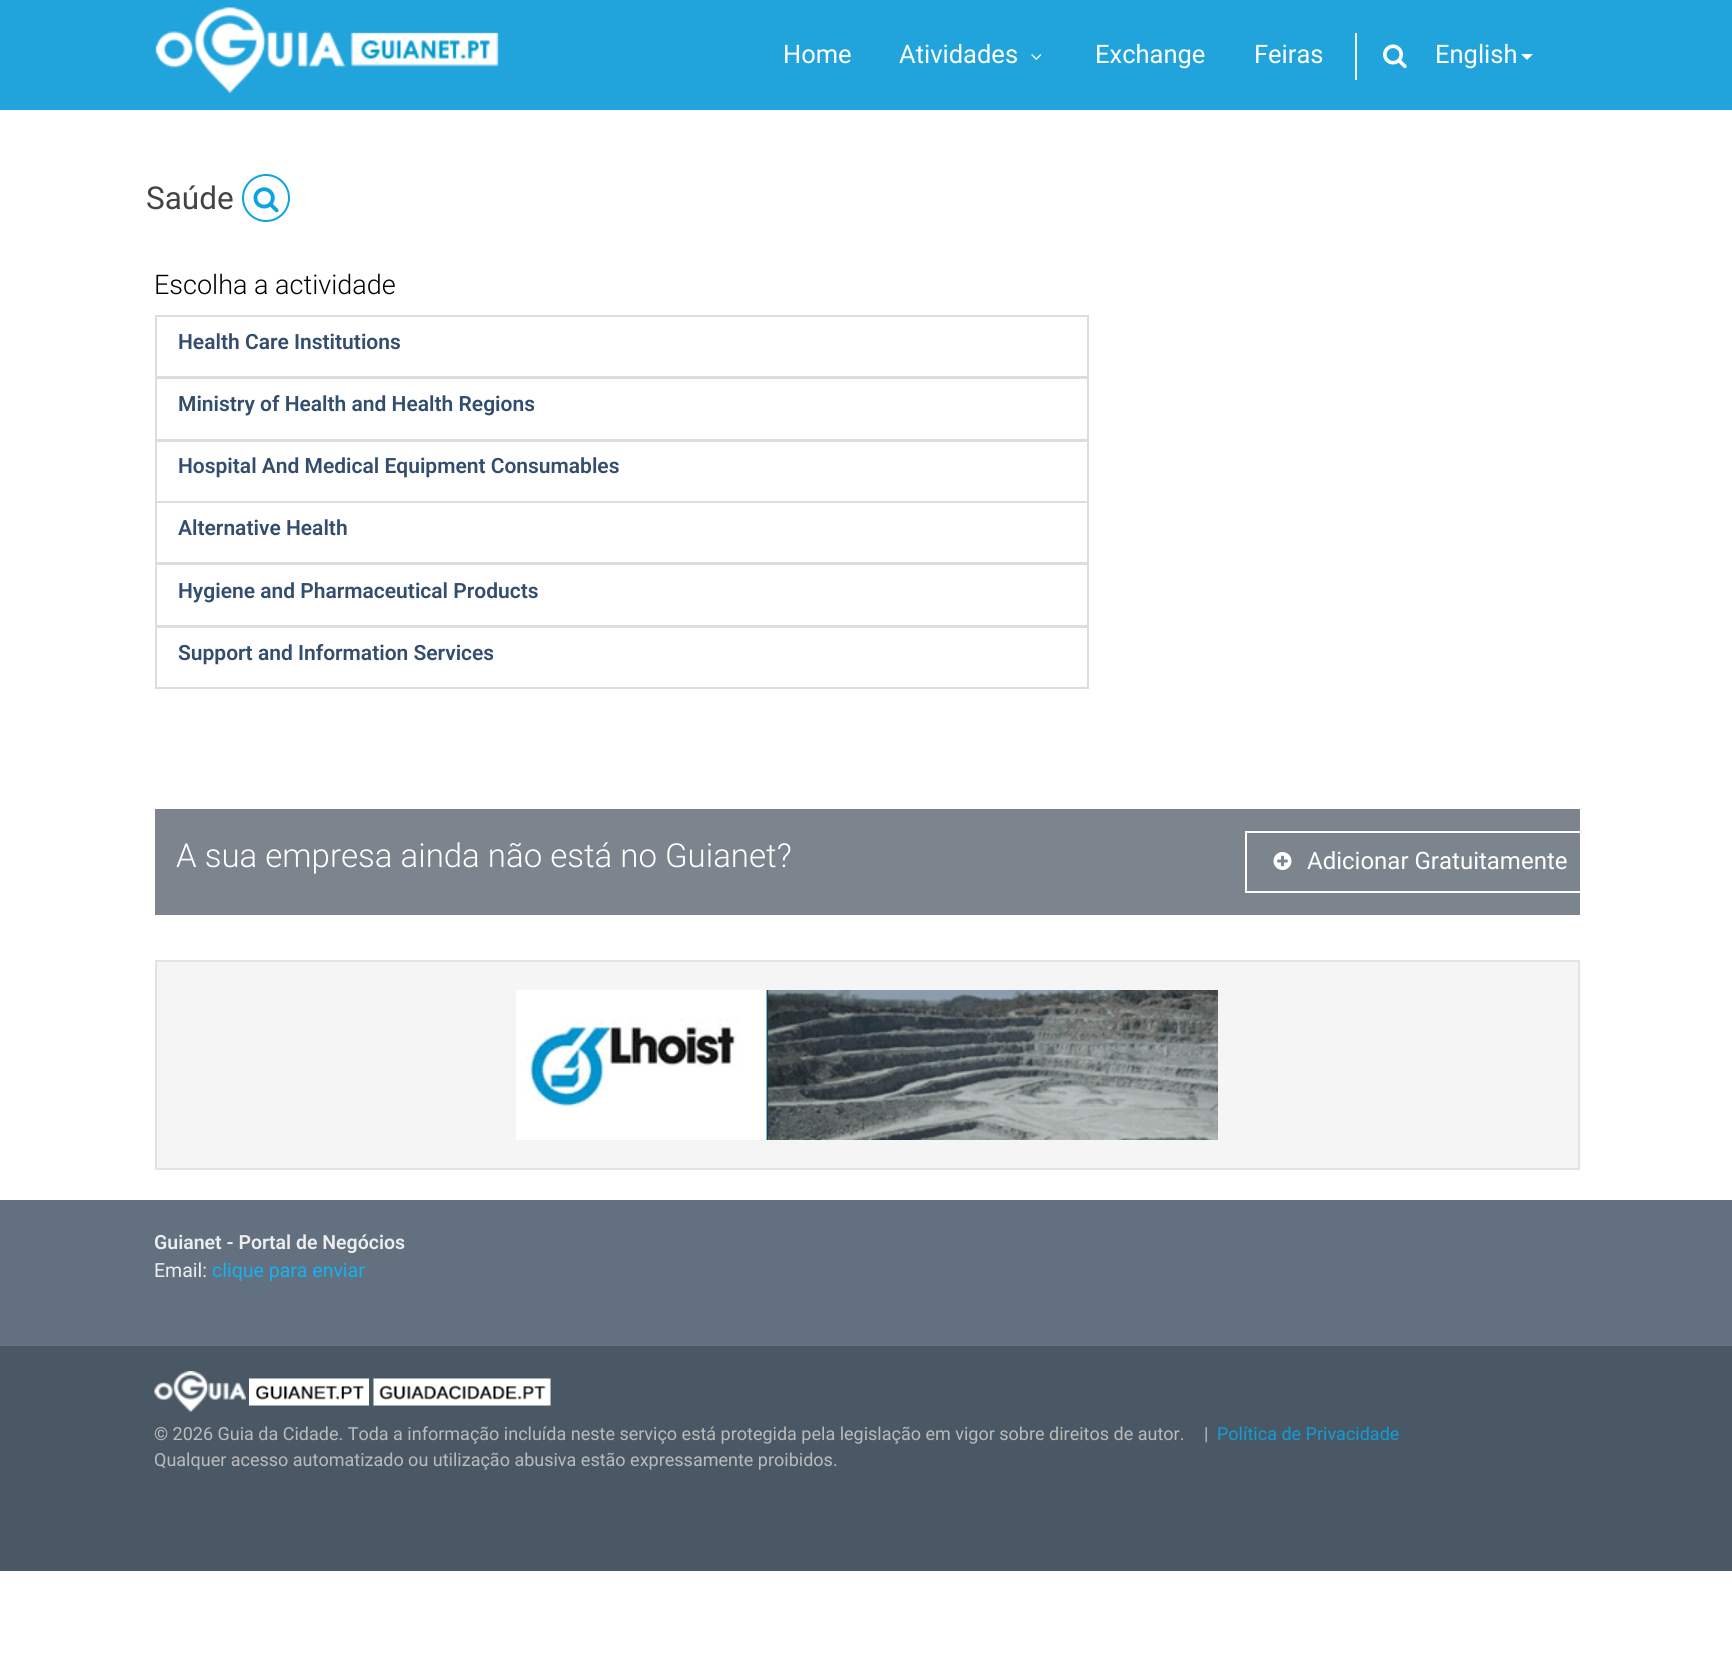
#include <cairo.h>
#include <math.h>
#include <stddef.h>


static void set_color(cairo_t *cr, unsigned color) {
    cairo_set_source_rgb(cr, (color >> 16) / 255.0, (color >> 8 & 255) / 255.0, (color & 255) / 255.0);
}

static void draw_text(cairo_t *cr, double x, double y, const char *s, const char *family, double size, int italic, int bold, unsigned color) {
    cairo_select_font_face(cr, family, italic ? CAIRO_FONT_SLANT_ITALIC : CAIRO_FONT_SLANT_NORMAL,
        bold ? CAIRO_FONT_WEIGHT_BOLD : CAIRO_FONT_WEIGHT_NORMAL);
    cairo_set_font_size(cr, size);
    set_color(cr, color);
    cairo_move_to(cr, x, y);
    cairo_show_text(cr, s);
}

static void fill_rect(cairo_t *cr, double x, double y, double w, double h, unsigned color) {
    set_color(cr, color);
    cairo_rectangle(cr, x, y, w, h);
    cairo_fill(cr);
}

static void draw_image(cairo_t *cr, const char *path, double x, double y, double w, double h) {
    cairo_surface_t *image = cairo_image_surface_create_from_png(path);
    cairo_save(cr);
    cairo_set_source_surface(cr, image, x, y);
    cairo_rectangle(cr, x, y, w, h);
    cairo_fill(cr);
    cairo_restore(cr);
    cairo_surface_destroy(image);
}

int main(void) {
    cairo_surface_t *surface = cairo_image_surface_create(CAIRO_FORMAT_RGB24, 1732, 1657);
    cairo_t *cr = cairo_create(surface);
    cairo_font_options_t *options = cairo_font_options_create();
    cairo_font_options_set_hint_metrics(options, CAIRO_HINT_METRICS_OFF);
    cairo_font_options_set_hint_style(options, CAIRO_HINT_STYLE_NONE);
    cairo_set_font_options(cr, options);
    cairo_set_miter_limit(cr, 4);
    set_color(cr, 0xFFFFFF);
    cairo_paint(cr);
    fill_rect(cr, 0, 0, 1732, 110, 0x20A4DB);
    draw_image(cr, "assets/img1.png", 155, 7, 344, 87);
    draw_text(cr, 783, 63, "Home", "Roboto", 25.5, 0, 0, 0xFFFFFF);
    draw_text(cr, 899, 63, "Atividades", "Roboto", 25.5, 0, 0, 0xFFFFFF);
    draw_image(cr, "assets/img2.png", 1031, 54, 11, 6);
    draw_text(cr, 1095, 63, "Exchange", "Roboto", 25.5, 0, 0, 0xFFFFFF);
    draw_text(cr, 1254, 63, "Feiras", "Roboto", 25.5, 0, 0, 0xFFFFFF);
    fill_rect(cr, 1355, 33, 2, 47, 0xEEEEEE);
    draw_image(cr, "assets/img3.png", 1383, 44, 24, 25);
    draw_text(cr, 1435, 63, "English", "Roboto", 25.5, 0, 0, 0xFFFFFF);
    cairo_new_path(cr);
    cairo_move_to(cr, 1521, 54);
    cairo_line_to(cr, 1533, 54);
    cairo_line_to(cr, 1527, 60);
    cairo_close_path(cr);
    cairo_fill(cr);
    draw_text(cr, 146, 209, "Saúde", "Roboto", 31.5, 0, 0, 0x444444);
    cairo_new_path(cr);
    cairo_arc(cr, 266, 198, 23, 0, 2 * M_PI);
    set_color(cr, 0x0DA3E2);
    cairo_stroke(cr);
    draw_image(cr, "assets/img4.png", 253, 187, 26, 26);
    draw_text(cr, 154, 294, "Escolha a actividade", "Roboto Light", 27, 0, 0, 0x000000);
    cairo_rectangle(cr, 156, 316, 932, 61);
    set_color(cr, 0xDDDDDD);
    cairo_stroke(cr);
    draw_text(cr, 178, 349, "Health Care Institutions", "Roboto SemiBold", 21, 0, 0, 0x324D6D);
    cairo_rectangle(cr, 156, 378, 932, 62);
    set_color(cr, 0xDDDDDD);
    cairo_stroke(cr);
    draw_text(cr, 178, 411, "Ministry of Health and Health Regions", "Roboto SemiBold", 21, 0, 0, 0x324D6D);
    cairo_rectangle(cr, 156, 441, 932, 61);
    set_color(cr, 0xDDDDDD);
    cairo_stroke(cr);
    draw_text(cr, 178, 473, "Hospital And Medical Equipment Consumables", "Roboto SemiBold", 21, 0, 0, 0x324D6D);
    cairo_rectangle(cr, 156, 502, 932, 61);
    set_color(cr, 0xDDDDDD);
    cairo_stroke(cr);
    draw_text(cr, 178, 535, "Alternative Health", "Roboto SemiBold", 21, 0, 0, 0x324D6D);
    cairo_rectangle(cr, 156, 564, 932, 62);
    set_color(cr, 0xDDDDDD);
    cairo_stroke(cr);
    draw_text(cr, 178, 598, "Hygiene and Pharmaceutical Products", "Roboto SemiBold", 21, 0, 0, 0x324D6D);
    cairo_rectangle(cr, 156, 627, 932, 61);
    set_color(cr, 0xDDDDDD);
    cairo_stroke(cr);
    draw_text(cr, 178, 660, "Support and Information Services", "Roboto SemiBold", 21, 0, 0, 0x324D6D);
    fill_rect(cr, 155, 809, 1425, 106, 0x7C858E);
    draw_text(cr, 176, 867, "A sua empresa ainda não está no Guianet?", "Roboto Light", 33, 0, 0, 0xFFFFFF);
    cairo_rectangle(cr, 1246, 832, 349, 60);
    cairo_stroke(cr);
    draw_image(cr, "assets/img5.png", 1273, 852, 19, 18);
    draw_text(cr, 1307, 869, "Adicionar Gratuitamente", "Roboto", 24, 0, 0, 0xFFFFFF);
    set_color(cr, 0xF5F5F5);
    cairo_rectangle(cr, 156, 961, 1423, 208);
    cairo_fill_preserve(cr);
    set_color(cr, 0xE3E3E3);
    cairo_stroke(cr);
    draw_image(cr, "assets/img6.png", 516, 990, 702, 150);
    fill_rect(cr, 0, 1200, 1732, 146, 0x62707F);
    draw_text(cr, 154, 1249, "Guianet - Portal de Negócios", "Roboto SemiBold", 19.5, 0, 0, 0xEEEEEE);
    draw_text(cr, 154, 1277, "Email:", "Roboto", 19.5, 0, 0, 0xEEEEEE);
    draw_text(cr, 212, 1277, "clique para enviar", "Roboto", 19.5, 0, 0, 0x15B1F3);
    fill_rect(cr, 0, 1346, 1732, 225, 0x4A5866);
    draw_image(cr, "assets/img7.png", 154, 1371, 92, 41);
    draw_image(cr, "assets/img8.png", 249, 1378, 120, 28);
    draw_image(cr, "assets/img9.png", 373, 1378, 178, 28);
    draw_text(cr, 154, 1440, "© 2026 Guia da Cidade. Toda a informação incluída neste serviço está protegida pela legislação em vigor sobre direitos de autor.", "Roboto", 18, 0, 0, 0xBBBBBB);
    draw_text(cr, 1204, 1440, "|", "Roboto", 18, 0, 0, 0xBBBBBB);
    draw_text(cr, 1217, 1440, "Política de Privacidade", "Roboto", 18, 0, 0, 0x119CD6);
    draw_text(cr, 154, 1466, "Qualquer acesso automatizado ou utilização abusiva estão expressamente proibidos.", "Roboto", 18, 0, 0, 0xBBBBBB);
    cairo_surface_write_to_png(surface, "output.png");
    cairo_font_options_destroy(options);
    cairo_destroy(cr);
    cairo_surface_destroy(surface);
    return 0;
}
